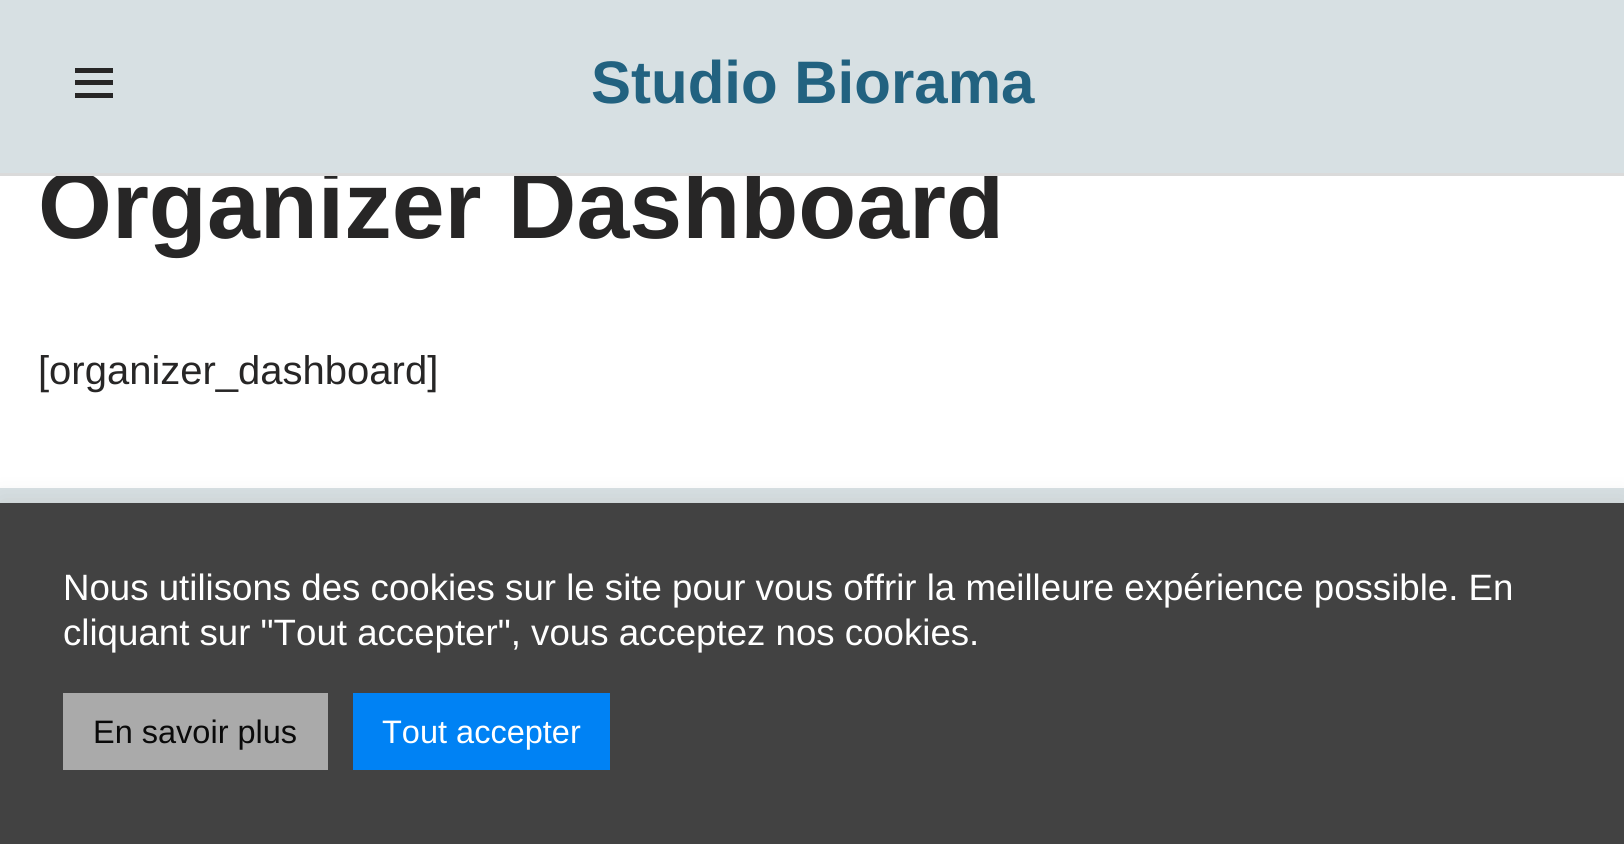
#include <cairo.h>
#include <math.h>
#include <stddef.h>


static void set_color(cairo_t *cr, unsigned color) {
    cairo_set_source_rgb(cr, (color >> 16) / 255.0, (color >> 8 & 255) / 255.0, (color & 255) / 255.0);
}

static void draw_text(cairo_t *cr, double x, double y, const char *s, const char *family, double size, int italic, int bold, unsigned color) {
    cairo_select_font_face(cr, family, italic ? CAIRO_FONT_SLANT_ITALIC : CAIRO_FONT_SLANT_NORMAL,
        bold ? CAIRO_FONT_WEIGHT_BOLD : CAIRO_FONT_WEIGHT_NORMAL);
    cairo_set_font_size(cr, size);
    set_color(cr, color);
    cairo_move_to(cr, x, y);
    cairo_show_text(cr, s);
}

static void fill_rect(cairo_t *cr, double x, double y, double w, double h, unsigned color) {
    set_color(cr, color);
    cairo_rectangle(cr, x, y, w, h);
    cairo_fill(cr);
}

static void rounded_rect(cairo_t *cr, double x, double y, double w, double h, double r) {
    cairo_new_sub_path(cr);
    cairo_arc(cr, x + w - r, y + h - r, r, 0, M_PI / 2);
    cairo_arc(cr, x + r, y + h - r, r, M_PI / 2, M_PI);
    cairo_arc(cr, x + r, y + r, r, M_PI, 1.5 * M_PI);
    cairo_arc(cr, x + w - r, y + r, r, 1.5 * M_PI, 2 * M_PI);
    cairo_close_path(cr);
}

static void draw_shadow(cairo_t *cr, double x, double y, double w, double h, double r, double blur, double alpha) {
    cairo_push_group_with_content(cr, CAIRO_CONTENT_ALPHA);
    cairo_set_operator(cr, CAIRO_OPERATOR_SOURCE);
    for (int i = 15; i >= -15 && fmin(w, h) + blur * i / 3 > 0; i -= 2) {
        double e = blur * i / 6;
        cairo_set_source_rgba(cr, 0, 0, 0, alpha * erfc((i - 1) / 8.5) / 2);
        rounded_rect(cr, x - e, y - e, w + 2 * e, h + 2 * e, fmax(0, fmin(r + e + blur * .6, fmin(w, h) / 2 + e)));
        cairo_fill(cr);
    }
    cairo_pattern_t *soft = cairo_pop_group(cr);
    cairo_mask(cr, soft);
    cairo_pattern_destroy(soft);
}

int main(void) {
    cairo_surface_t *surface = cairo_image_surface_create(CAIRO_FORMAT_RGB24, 1624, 844);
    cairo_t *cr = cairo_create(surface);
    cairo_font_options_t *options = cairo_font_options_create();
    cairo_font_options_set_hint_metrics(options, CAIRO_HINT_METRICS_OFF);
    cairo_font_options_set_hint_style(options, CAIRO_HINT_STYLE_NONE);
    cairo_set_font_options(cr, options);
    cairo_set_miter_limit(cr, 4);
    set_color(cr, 0xFFFFFF);
    cairo_paint(cr);
    draw_text(cr, 38, 238, "Organizer Dashboard", "Liberation Sans", 95, 0, 1, 0x272626);
    fill_rect(cr, 0, 0, 1624, 173, 0xD7E0E3);
    fill_rect(cr, 0, 173, 1624, 3, 0xDADADA);
    fill_rect(cr, 75, 68, 38, 5, 0x272626);
    fill_rect(cr, 75, 80, 38, 5, 0x272626);
    fill_rect(cr, 75, 93, 38, 5, 0x272626);
    draw_text(cr, 591, 103, "Studio Biorama", "Liberation Sans", 60, 0, 1, 0x226280);
    draw_text(cr, 38, 384, "[organizer_dashboard]", "Liberation Sans", 40, 0, 0, 0x272626);
    fill_rect(cr, 0, 488, 1624, 15, 0xD7E0E3);
    set_color(cr, 0xACABAB);
    draw_shadow(cr, 0, 500, 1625, 343, 0, 12.5, 0.3);
    fill_rect(cr, 0, 503, 1624, 341, 0x424242);
    draw_text(cr, 63, 600, "Nous utilisons des cookies sur le site pour vous offrir la meilleure expérience possible. En", "Liberation Sans", 36.65, 0, 0, 0xFFFFFF);
    draw_text(cr, 63, 645, "cliquant sur \"Tout accepter\", vous acceptez nos cookies.", "Liberation Sans", 36.65, 0, 0, 0xFFFFFF);
    fill_rect(cr, 63, 693, 265, 77, 0xAAAAAA);
    draw_text(cr, 93, 743, "En savoir plus", "Liberation Sans", 32.5, 0, 0, 0x0A0A0A);
    fill_rect(cr, 353, 693, 257, 77, 0x0082F4);
    draw_text(cr, 382, 743, "Tout accepter", "Liberation Sans", 32.5, 0, 0, 0xFFFFFF);
    cairo_surface_write_to_png(surface, "output.png");
    cairo_font_options_destroy(options);
    cairo_destroy(cr);
    cairo_surface_destroy(surface);
    return 0;
}
